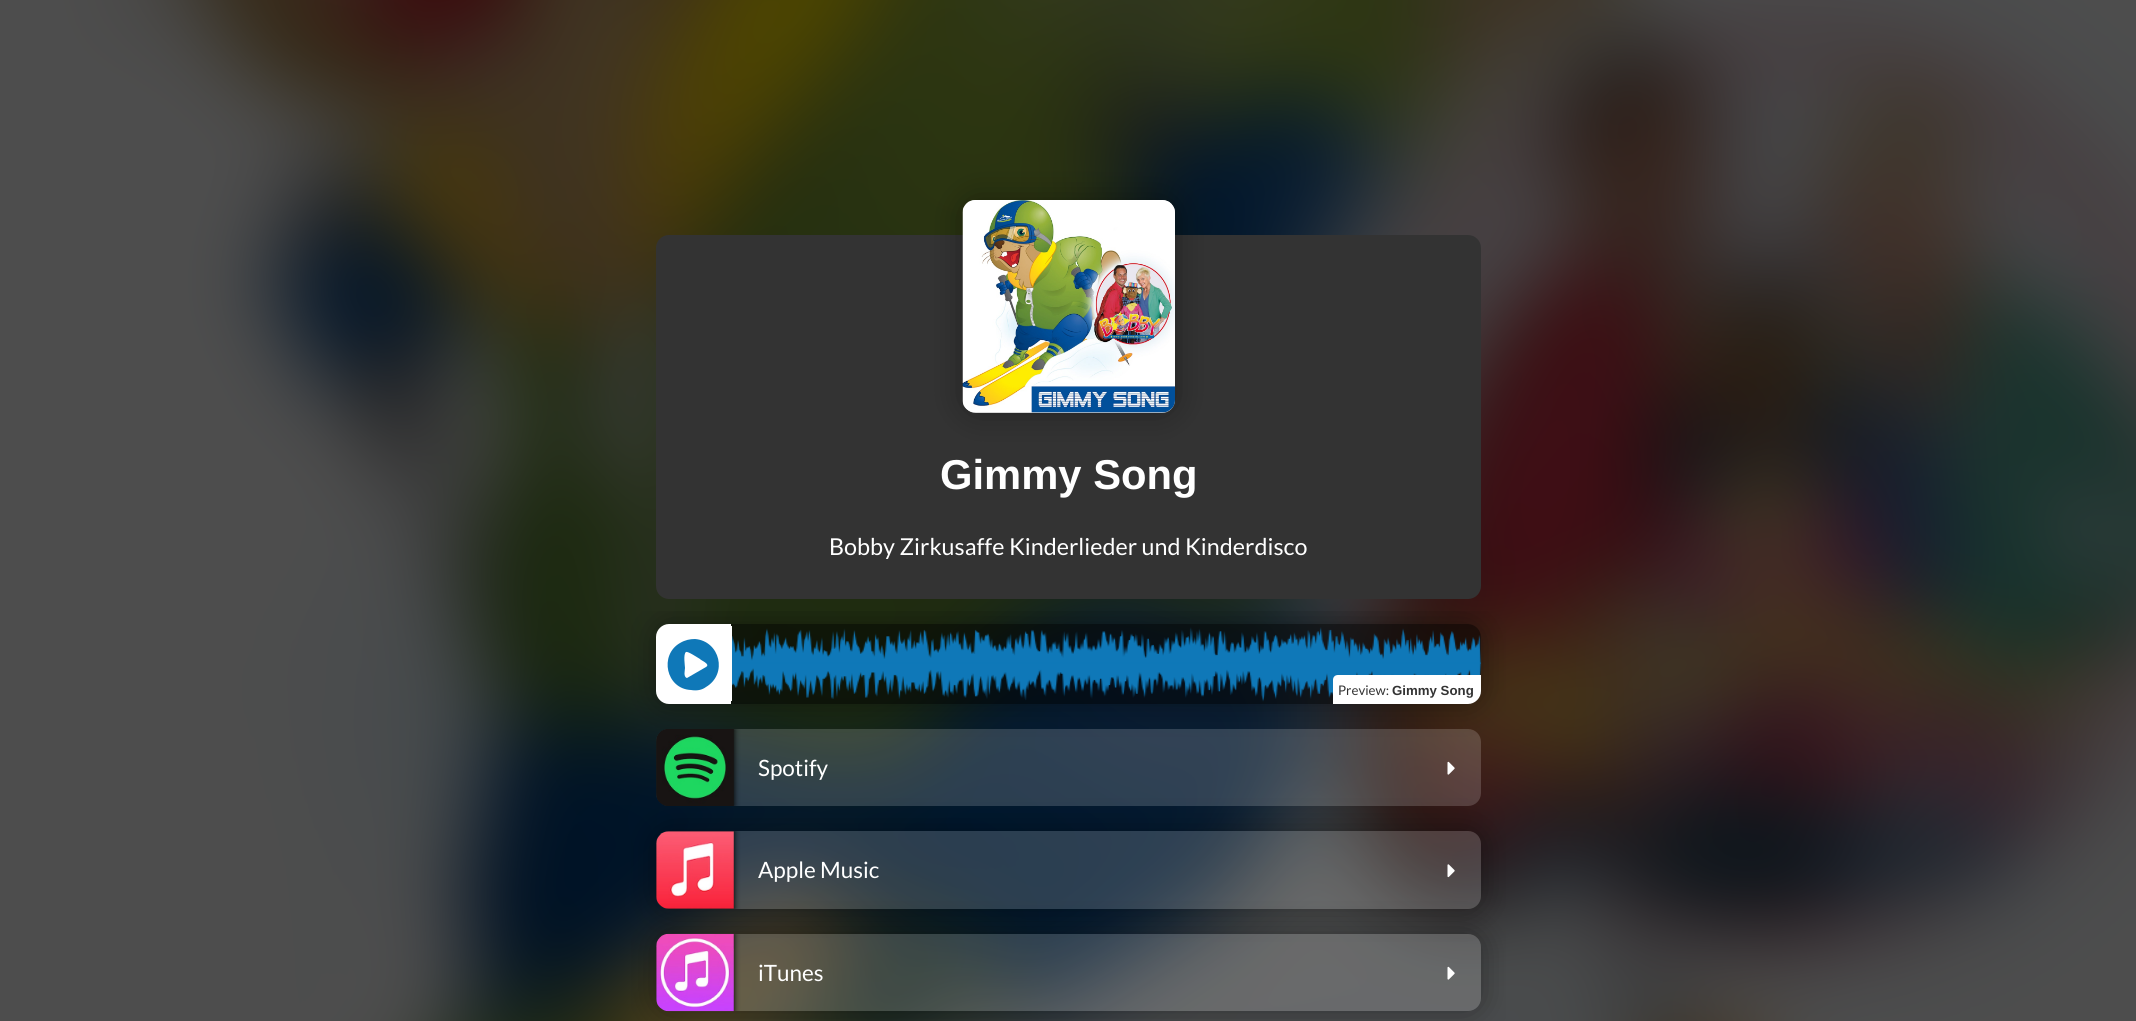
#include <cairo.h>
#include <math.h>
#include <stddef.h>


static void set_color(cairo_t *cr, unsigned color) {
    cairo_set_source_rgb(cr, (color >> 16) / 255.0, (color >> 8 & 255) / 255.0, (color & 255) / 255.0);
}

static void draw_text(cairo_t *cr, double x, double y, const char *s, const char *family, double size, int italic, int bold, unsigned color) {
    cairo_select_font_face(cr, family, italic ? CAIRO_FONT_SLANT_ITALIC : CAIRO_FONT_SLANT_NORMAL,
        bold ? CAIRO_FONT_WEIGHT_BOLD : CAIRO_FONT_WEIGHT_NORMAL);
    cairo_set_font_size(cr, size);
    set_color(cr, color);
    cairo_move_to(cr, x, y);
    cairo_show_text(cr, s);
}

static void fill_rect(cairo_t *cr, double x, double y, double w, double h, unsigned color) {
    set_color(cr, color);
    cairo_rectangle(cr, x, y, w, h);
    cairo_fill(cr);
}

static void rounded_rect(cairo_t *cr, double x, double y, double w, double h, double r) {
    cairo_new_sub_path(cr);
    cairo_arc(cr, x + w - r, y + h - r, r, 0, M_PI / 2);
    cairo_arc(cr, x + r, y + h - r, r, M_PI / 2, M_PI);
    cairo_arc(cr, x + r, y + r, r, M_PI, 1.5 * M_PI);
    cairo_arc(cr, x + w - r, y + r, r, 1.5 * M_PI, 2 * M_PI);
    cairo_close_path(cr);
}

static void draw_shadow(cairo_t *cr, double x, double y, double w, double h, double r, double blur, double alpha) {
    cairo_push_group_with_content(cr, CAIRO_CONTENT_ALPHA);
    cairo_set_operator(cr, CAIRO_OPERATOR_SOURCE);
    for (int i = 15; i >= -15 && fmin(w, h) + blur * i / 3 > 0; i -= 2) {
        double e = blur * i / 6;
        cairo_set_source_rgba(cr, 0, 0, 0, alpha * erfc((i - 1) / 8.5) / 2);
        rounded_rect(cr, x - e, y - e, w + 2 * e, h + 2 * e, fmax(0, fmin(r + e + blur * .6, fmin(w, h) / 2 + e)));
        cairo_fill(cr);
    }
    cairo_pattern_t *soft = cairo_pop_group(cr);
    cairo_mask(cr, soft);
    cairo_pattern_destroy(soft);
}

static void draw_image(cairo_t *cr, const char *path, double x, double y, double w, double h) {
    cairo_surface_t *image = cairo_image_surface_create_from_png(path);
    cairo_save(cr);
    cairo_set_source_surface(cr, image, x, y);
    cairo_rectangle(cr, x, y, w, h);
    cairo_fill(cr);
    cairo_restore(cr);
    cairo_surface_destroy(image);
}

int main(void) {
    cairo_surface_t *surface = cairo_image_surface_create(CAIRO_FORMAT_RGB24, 2136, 1021);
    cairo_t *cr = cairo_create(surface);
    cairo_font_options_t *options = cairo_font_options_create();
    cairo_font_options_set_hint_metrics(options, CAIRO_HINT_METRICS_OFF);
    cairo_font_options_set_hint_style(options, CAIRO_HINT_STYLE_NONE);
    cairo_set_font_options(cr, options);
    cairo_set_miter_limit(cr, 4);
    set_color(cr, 0x000000);
    cairo_paint(cr);
    draw_image(cr, "assets/img1.png", 0, 0, 2136, 1021);
    set_color(cr, 0x333333);
    rounded_rect(cr, 656, 235, 825, 364, 13);
    cairo_fill(cr);
    set_color(cr, 0x000000);
    draw_shadow(cr, 963, 200, 212, 213, 13, 15.5, 0.35);
    set_color(cr, 0xCCCCCC);
    rounded_rect(cr, 963, 200, 212, 213, 13);
    cairo_fill(cr);
    draw_image(cr, "assets/img2.png", 962, 200, 213, 213);
    draw_text(cr, 940, 489, "Gimmy Song", "Liberation Sans", 41.75, 0, 1, 0xFFFFFF);
    draw_text(cr, 829, 555, "Bobby Zirkusaffe Kinderlieder und Kinderdisco", "Lato", 23.3, 0, 0, 0xFFFFFF);
    cairo_set_source_rgba(cr, 1, 1, 1, 0.17);
    rounded_rect(cr, 656, 729, 825, 77, 13);
    cairo_fill(cr);
    cairo_save(cr);
    rounded_rect(cr, 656, 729, 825, 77, 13);
    cairo_clip(cr);
    set_color(cr, 0x000000);
    draw_shadow(cr, 656, 729, 78, 77, 0, 3, 1);
    cairo_restore(cr);
    draw_image(cr, "assets/img4.png", 656, 729, 78, 77);
    cairo_save(cr);
    cairo_rectangle(cr, 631, 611, 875, 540);
    cairo_clip(cr);
    cairo_set_fill_rule(cr, CAIRO_FILL_RULE_EVEN_ODD);
    cairo_new_path(cr);
    cairo_move_to(cr, 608, 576);
    cairo_line_to(cr, 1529, 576);
    cairo_line_to(cr, 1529, 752);
    cairo_line_to(cr, 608, 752);
    cairo_close_path(cr);
    cairo_move_to(cr, 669, 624);
    cairo_line_to(cr, 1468, 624);
    cairo_curve_to(cr, 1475, 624, 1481, 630, 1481, 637);
    cairo_line_to(cr, 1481, 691);
    cairo_curve_to(cr, 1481, 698, 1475, 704, 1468, 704);
    cairo_line_to(cr, 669, 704);
    cairo_curve_to(cr, 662, 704, 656, 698, 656, 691);
    cairo_line_to(cr, 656, 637);
    cairo_curve_to(cr, 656, 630, 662, 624, 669, 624);
    cairo_close_path(cr);
    cairo_clip(cr);
    set_color(cr, 0x000000);
    draw_shadow(cr, 656, 624, 825, 80, 13, 15.5, 0.35);
    cairo_restore(cr);
    set_color(cr, 0xFFFFFF);
    cairo_new_path(cr);
    cairo_move_to(cr, 669, 624);
    cairo_line_to(cr, 731, 624);
    cairo_line_to(cr, 731, 704);
    cairo_line_to(cr, 669, 704);
    cairo_curve_to(cr, 662, 704, 656, 698, 656, 691);
    cairo_line_to(cr, 656, 637);
    cairo_curve_to(cr, 656, 630, 662, 624, 669, 624);
    cairo_close_path(cr);
    cairo_fill(cr);
    set_color(cr, 0x0F78B8);
    cairo_new_path(cr);
    cairo_move_to(cr, 680, 643);
    cairo_curve_to(cr, 685, 640, 690, 639, 695, 639);
    cairo_curve_to(cr, 720, 641, 728, 674, 706, 687);
    cairo_curve_to(cr, 702, 690, 697, 691, 691, 690);
    cairo_curve_to(cr, 666, 689, 659, 655, 680, 643);
    cairo_close_path(cr);
    cairo_move_to(cr, 706, 667);
    cairo_curve_to(cr, 711, 664, 700, 660, 700, 659);
    cairo_curve_to(cr, 698, 658, 688, 651, 686, 652);
    cairo_curve_to(cr, 683, 654, 685, 666, 685, 668);
    cairo_curve_to(cr, 685, 670, 683, 677, 687, 678);
    cairo_close_path(cr);
    cairo_fill(cr);
    cairo_set_source_rgba(cr, 0, 0, 0, 0.5);
    cairo_new_path(cr);
    cairo_move_to(cr, 731, 624);
    cairo_line_to(cr, 1468, 624);
    cairo_curve_to(cr, 1475, 624, 1481, 630, 1481, 637);
    cairo_line_to(cr, 1481, 691);
    cairo_curve_to(cr, 1481, 698, 1475, 704, 1468, 704);
    cairo_line_to(cr, 731, 704);
    cairo_close_path(cr);
    cairo_fill(cr);
    fill_rect(cr, 731, 626, 1, 75, 0xFFFFFF);
    draw_image(cr, "assets/img3.png", 732, 627, 750, 75);
    cairo_new_path(cr);
    cairo_move_to(cr, 1338, 675);
    cairo_line_to(cr, 1481, 675);
    cairo_line_to(cr, 1481, 691);
    cairo_curve_to(cr, 1481, 698, 1475, 704, 1468, 704);
    cairo_line_to(cr, 1333, 704);
    cairo_line_to(cr, 1333, 680);
    cairo_curve_to(cr, 1333, 677, 1335, 675, 1338, 675);
    cairo_close_path(cr);
    cairo_fill(cr);
    draw_text(cr, 1338, 695, "Preview:", "Lato", 13.25, 0, 0, 0x333333);
    draw_text(cr, 1392, 695, "Gimmy Song", "Liberation Sans", 13.25, 0, 1, 0x333333);
    draw_text(cr, 758, 776, "Spotify", "Lato", 22.5, 0, 0, 0xFFFFFF);
    draw_image(cr, "assets/img5.png", 1447, 761, 8, 14);
    cairo_save(cr);
    cairo_rectangle(cr, 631, 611, 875, 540);
    cairo_clip(cr);
    cairo_set_fill_rule(cr, CAIRO_FILL_RULE_EVEN_ODD);
    cairo_new_path(cr);
    cairo_move_to(cr, 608, 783);
    cairo_line_to(cr, 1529, 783);
    cairo_line_to(cr, 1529, 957);
    cairo_line_to(cr, 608, 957);
    cairo_close_path(cr);
    cairo_move_to(cr, 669, 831);
    cairo_line_to(cr, 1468, 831);
    cairo_curve_to(cr, 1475, 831, 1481, 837, 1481, 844);
    cairo_line_to(cr, 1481, 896);
    cairo_curve_to(cr, 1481, 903, 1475, 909, 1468, 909);
    cairo_line_to(cr, 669, 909);
    cairo_curve_to(cr, 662, 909, 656, 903, 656, 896);
    cairo_line_to(cr, 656, 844);
    cairo_curve_to(cr, 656, 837, 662, 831, 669, 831);
    cairo_close_path(cr);
    cairo_clip(cr);
    set_color(cr, 0x000000);
    draw_shadow(cr, 656, 831, 825, 78, 13, 15.5, 0.35);
    cairo_restore(cr);
    cairo_set_source_rgba(cr, 1, 1, 1, 0.17);
    rounded_rect(cr, 656, 831, 825, 78, 13);
    cairo_fill(cr);
    cairo_save(cr);
    rounded_rect(cr, 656, 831, 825, 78, 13);
    cairo_clip(cr);
    set_color(cr, 0x000000);
    draw_shadow(cr, 656, 831, 78, 78, 0, 3, 1);
    cairo_restore(cr);
    draw_image(cr, "assets/img6.png", 656, 831, 78, 78);
    draw_text(cr, 758, 878, "Apple Music", "Lato", 22.5, 0, 0, 0xFFFFFF);
    draw_image(cr, "assets/img7.png", 1447, 864, 8, 14);
    cairo_save(cr);
    cairo_rectangle(cr, 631, 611, 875, 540);
    cairo_clip(cr);
    cairo_set_fill_rule(cr, CAIRO_FILL_RULE_EVEN_ODD);
    cairo_new_path(cr);
    cairo_move_to(cr, 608, 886);
    cairo_line_to(cr, 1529, 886);
    cairo_line_to(cr, 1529, 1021);
    cairo_line_to(cr, 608, 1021);
    cairo_close_path(cr);
    cairo_move_to(cr, 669, 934);
    cairo_line_to(cr, 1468, 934);
    cairo_curve_to(cr, 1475, 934, 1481, 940, 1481, 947);
    cairo_line_to(cr, 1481, 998);
    cairo_curve_to(cr, 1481, 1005, 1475, 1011, 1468, 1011);
    cairo_line_to(cr, 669, 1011);
    cairo_curve_to(cr, 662, 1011, 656, 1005, 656, 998);
    cairo_line_to(cr, 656, 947);
    cairo_curve_to(cr, 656, 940, 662, 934, 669, 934);
    cairo_close_path(cr);
    cairo_clip(cr);
    set_color(cr, 0x000000);
    draw_shadow(cr, 656, 934, 825, 77, 13, 15.5, 0.35);
    cairo_restore(cr);
    cairo_set_source_rgba(cr, 1, 1, 1, 0.17);
    rounded_rect(cr, 656, 934, 825, 77, 13);
    cairo_fill(cr);
    cairo_save(cr);
    rounded_rect(cr, 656, 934, 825, 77, 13);
    cairo_clip(cr);
    set_color(cr, 0x000000);
    draw_shadow(cr, 656, 934, 78, 77, 0, 3, 1);
    cairo_restore(cr);
    draw_image(cr, "assets/img8.png", 656, 933, 78, 79);
    draw_text(cr, 758, 981, "iTunes", "Lato", 22.5, 0, 0, 0xFFFFFF);
    draw_image(cr, "assets/img9.png", 1447, 966, 8, 14);
    cairo_surface_write_to_png(surface, "output.png");
    cairo_font_options_destroy(options);
    cairo_destroy(cr);
    cairo_surface_destroy(surface);
    return 0;
}
